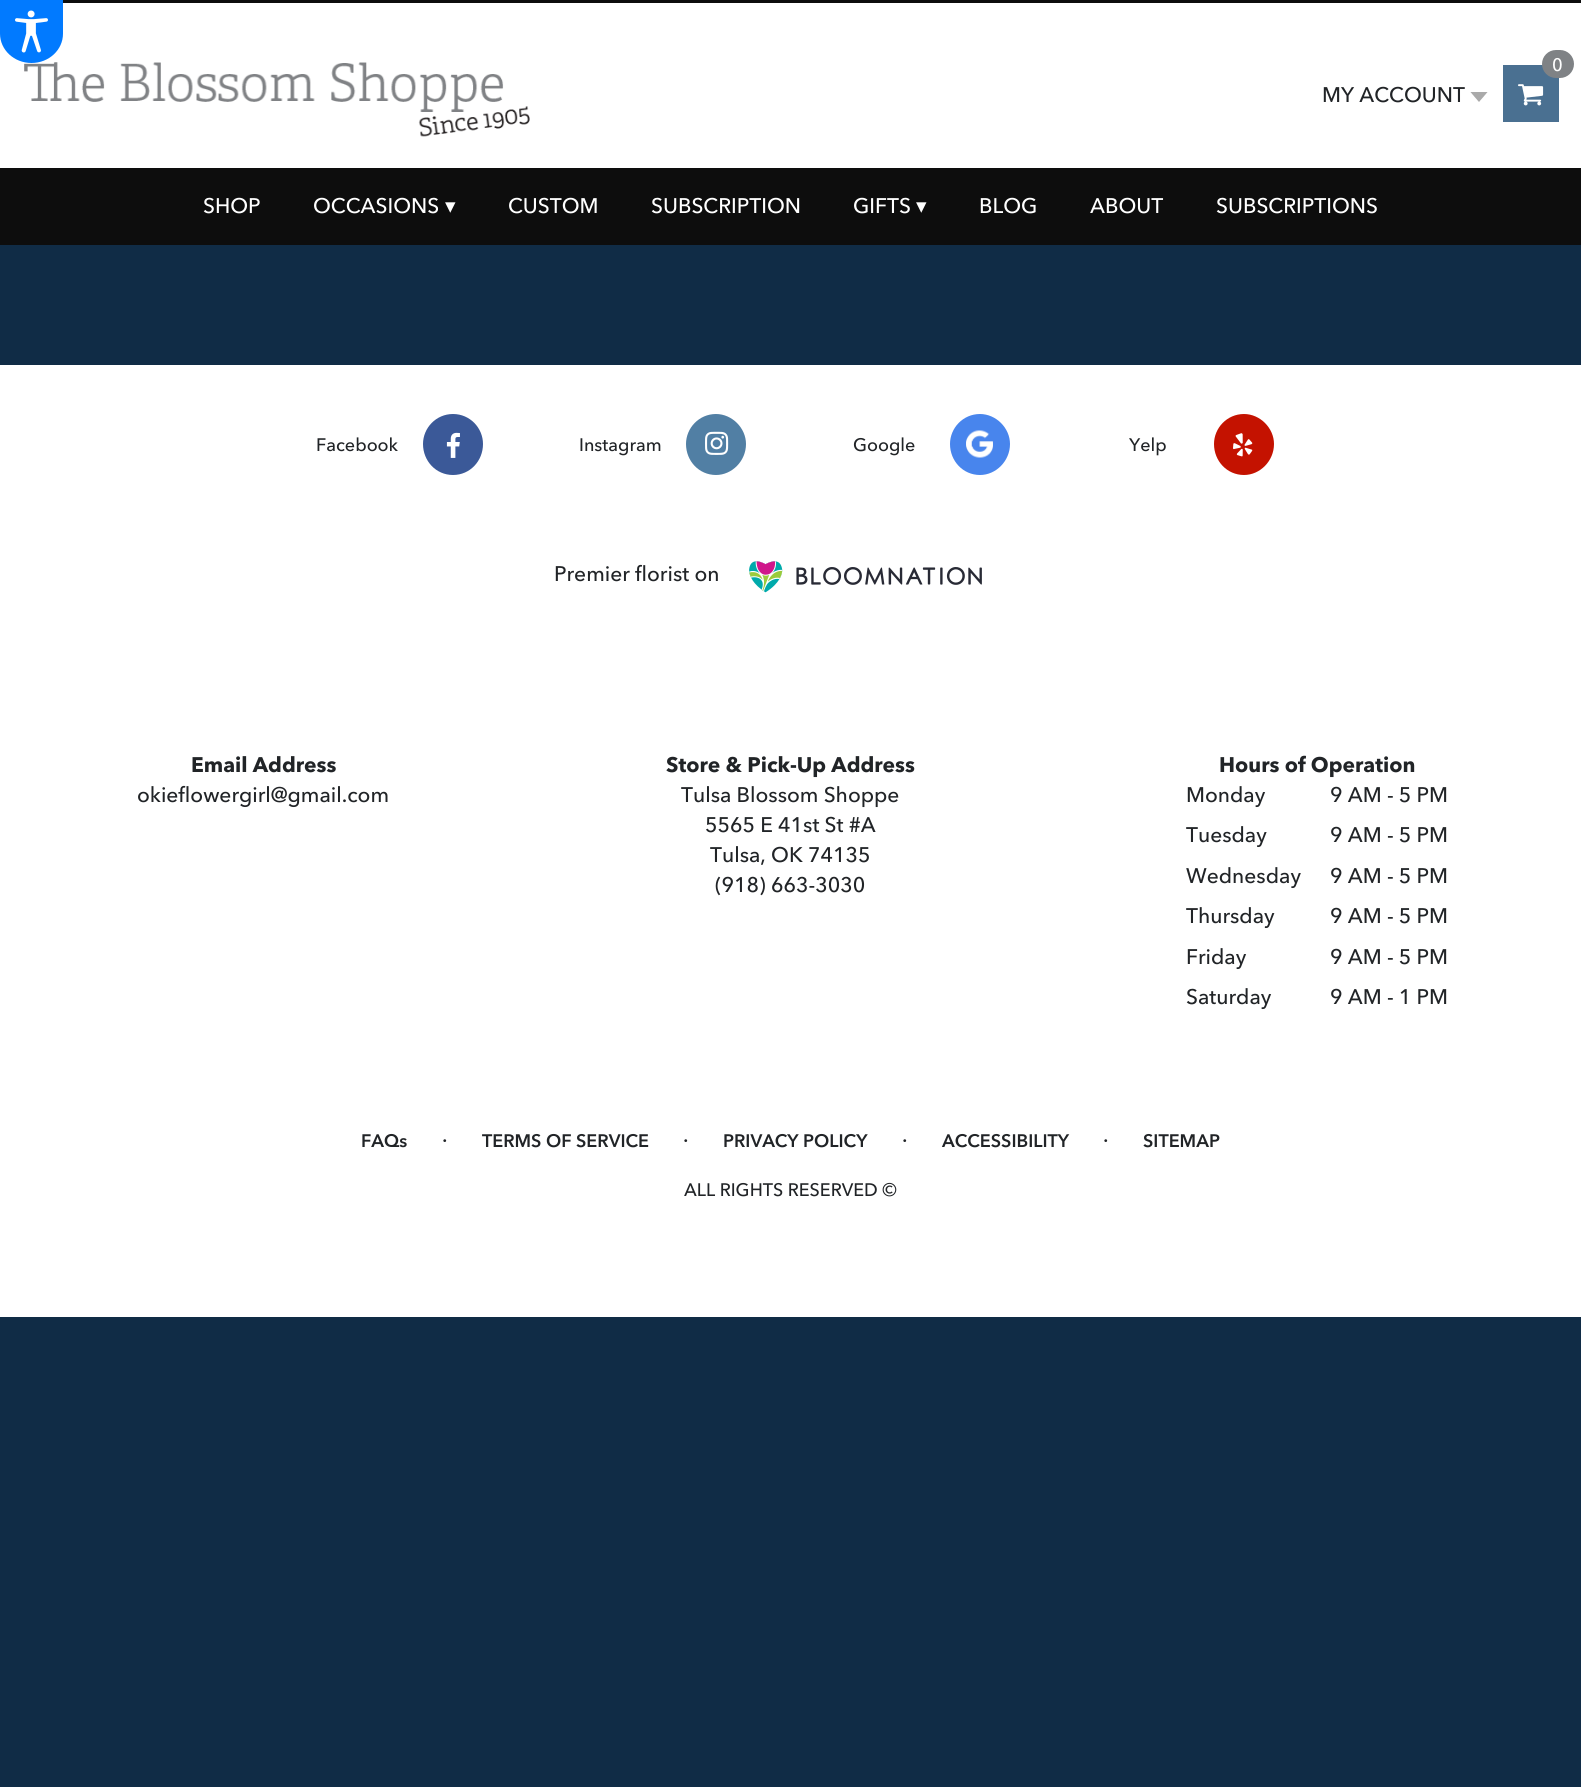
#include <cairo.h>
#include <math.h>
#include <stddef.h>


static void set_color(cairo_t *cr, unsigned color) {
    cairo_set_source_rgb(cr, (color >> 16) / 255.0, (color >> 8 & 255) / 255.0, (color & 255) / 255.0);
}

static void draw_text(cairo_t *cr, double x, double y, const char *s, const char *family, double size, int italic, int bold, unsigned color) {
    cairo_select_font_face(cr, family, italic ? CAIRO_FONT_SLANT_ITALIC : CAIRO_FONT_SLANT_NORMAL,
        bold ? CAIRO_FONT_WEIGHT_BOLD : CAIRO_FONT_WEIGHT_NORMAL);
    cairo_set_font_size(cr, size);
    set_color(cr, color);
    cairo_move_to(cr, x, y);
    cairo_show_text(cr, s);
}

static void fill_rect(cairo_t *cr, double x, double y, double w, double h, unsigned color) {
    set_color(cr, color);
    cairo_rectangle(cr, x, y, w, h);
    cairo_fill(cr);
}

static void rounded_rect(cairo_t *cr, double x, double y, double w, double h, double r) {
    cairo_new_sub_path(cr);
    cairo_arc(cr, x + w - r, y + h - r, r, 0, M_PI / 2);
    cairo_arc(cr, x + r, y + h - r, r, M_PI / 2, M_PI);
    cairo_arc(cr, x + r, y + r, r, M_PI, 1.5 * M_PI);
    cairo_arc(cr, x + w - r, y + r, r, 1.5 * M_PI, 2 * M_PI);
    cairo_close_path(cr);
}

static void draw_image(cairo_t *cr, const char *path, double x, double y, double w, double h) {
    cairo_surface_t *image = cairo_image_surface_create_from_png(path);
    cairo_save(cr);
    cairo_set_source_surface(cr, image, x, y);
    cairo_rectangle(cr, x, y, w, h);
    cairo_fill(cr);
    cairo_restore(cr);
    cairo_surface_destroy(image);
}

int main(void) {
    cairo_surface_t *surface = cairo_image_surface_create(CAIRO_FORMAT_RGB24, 1581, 1787);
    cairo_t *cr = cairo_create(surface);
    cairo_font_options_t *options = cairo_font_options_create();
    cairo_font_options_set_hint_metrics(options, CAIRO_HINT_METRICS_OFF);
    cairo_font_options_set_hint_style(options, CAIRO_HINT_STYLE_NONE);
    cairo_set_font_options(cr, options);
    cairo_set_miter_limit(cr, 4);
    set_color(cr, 0x102C46);
    cairo_paint(cr);
    fill_rect(cr, 0, 3, 1581, 165, 0xFFFFFF);
    draw_image(cr, "assets/img2.png", 24, 62, 506, 75);
    draw_image(cr, "assets/img1.png", 0, 0, 63, 63);
    fill_rect(cr, 63, 0, 1518, 3, 0x0D0D0D);
    fill_rect(cr, 1503, 65, 56, 57, 0x4A7091);
    set_color(cr, 0x7F8285);
    rounded_rect(cr, 1542, 50, 32, 28, 14);
    cairo_fill(cr);
    draw_text(cr, 1552, 71, "0", "Avenir Next Medium", 18, 0, 0, 0xFFFFFF);
    draw_image(cr, "assets/img3.png", 1518, 84, 26, 22);
    draw_text(cr, 1322, 102, "MY ACCOUNT", "Avenir Next Medium", 21, 0, 0, 0x212427);
    draw_image(cr, "assets/img4.png", 1470, 92, 18, 10);
    fill_rect(cr, 0, 168, 1581, 77, 0x0D0D0D);
    draw_text(cr, 203, 213, "SHOP", "Avenir Next Medium", 21, 0, 0, 0xFFFFFF);
    draw_text(cr, 313, 213, "OCCASIONS", "Avenir Next Medium", 21, 0, 0, 0xFFFFFF);
    draw_text(cr, 445, 213, "▾", "DejaVu Sans", 21, 0, 0, 0xFFFFFF);
    draw_text(cr, 508, 213, "CUSTOM", "Avenir Next Medium", 21, 0, 0, 0xFFFFFF);
    draw_text(cr, 651, 213, "SUBSCRIPTION", "Avenir Next Medium", 21, 0, 0, 0xFFFFFF);
    draw_text(cr, 853, 213, "GIFTS", "Avenir Next Medium", 21, 0, 0, 0xFFFFFF);
    draw_text(cr, 916, 213, "▾", "DejaVu Sans", 21, 0, 0, 0xFFFFFF);
    draw_text(cr, 979, 213, "BLOG", "Avenir Next Medium", 21, 0, 0, 0xFFFFFF);
    draw_text(cr, 1090, 213, "ABOUT", "Avenir Next Medium", 21, 0, 0, 0xFFFFFF);
    draw_text(cr, 1216, 213, "SUBSCRIPTIONS", "Avenir Next Medium", 21, 0, 0, 0xFFFFFF);
    fill_rect(cr, 0, 365, 1581, 952, 0xFFFFFF);
    draw_text(cr, 316, 451, "Facebook", "Avenir Next Medium", 18, 0, 0, 0x212427);
    set_color(cr, 0x3B5998);
    cairo_new_path(cr);
    cairo_move_to(cr, 483, 444);
    cairo_curve_to(cr, 483, 428, 470, 414, 453, 414);
    cairo_curve_to(cr, 436, 414, 423, 428, 423, 444);
    cairo_curve_to(cr, 423, 461, 436, 475, 453, 475);
    cairo_curve_to(cr, 470, 475, 483, 461, 483, 444);
    cairo_close_path(cr);
    cairo_fill(cr);
    draw_image(cr, "assets/img5.png", 446, 432, 14, 26);
    draw_text(cr, 579, 451, "Instagram", "Avenir Next Medium", 18, 0, 0, 0x212427);
    set_color(cr, 0x517FA4);
    cairo_new_path(cr);
    cairo_move_to(cr, 746, 444);
    cairo_curve_to(cr, 746, 428, 732, 414, 716, 414);
    cairo_curve_to(cr, 699, 414, 686, 428, 686, 444);
    cairo_curve_to(cr, 686, 461, 699, 475, 716, 475);
    cairo_curve_to(cr, 732, 475, 746, 461, 746, 444);
    cairo_close_path(cr);
    cairo_fill(cr);
    draw_image(cr, "assets/img6.png", 705, 431, 24, 24);
    draw_text(cr, 853, 451, "Google", "Avenir Next Medium", 18, 0, 0, 0x212427);
    set_color(cr, 0x4885ED);
    cairo_new_path(cr);
    cairo_move_to(cr, 1010, 444);
    cairo_curve_to(cr, 1010, 428, 996, 414, 980, 414);
    cairo_curve_to(cr, 963, 414, 950, 428, 950, 444);
    cairo_curve_to(cr, 950, 461, 963, 475, 980, 475);
    cairo_curve_to(cr, 996, 475, 1010, 461, 1010, 444);
    cairo_close_path(cr);
    cairo_fill(cr);
    draw_image(cr, "assets/img7.png", 966, 430, 27, 28);
    draw_text(cr, 1129, 451, "Yelp", "Avenir Next Medium", 18, 0, 0, 0x212427);
    set_color(cr, 0xC41200);
    cairo_new_path(cr);
    cairo_move_to(cr, 1274, 444);
    cairo_curve_to(cr, 1274, 428, 1260, 414, 1244, 414);
    cairo_curve_to(cr, 1227, 414, 1214, 428, 1214, 444);
    cairo_curve_to(cr, 1214, 461, 1227, 475, 1244, 475);
    cairo_curve_to(cr, 1260, 475, 1274, 461, 1274, 444);
    cairo_close_path(cr);
    cairo_fill(cr);
    draw_image(cr, "assets/img8.png", 1233, 433, 20, 24);
    draw_text(cr, 554, 581, "Premier florist on", "Avenir Next Medium", 21, 0, 0, 0x212427);
    draw_image(cr, "assets/img9.png", 749, 561, 233, 32);
    draw_text(cr, 191, 772, "Email Address", "Avenir Next", 21, 0, 1, 0x212427);
    draw_text(cr, 137, 802, "okieflowergirl@gmail.com", "Avenir Next Medium", 21, 0, 0, 0x212427);
    draw_text(cr, 666, 772, "Store & Pick-Up Address", "Avenir Next", 21, 0, 1, 0x212427);
    draw_text(cr, 681, 802, "Tulsa Blossom Shoppe", "Avenir Next Medium", 21, 0, 0, 0x212427);
    draw_text(cr, 705, 832, "5565 E 41st St #A", "Avenir Next Medium", 21, 0, 0, 0x212427);
    draw_text(cr, 710, 862, "Tulsa, OK 74135", "Avenir Next Medium", 21, 0, 0, 0x212427);
    draw_text(cr, 715, 892, "(918) 663-3030", "Avenir Next Medium", 21, 0, 0, 0x212427);
    draw_text(cr, 1219, 772, "Hours of Operation", "Avenir Next", 21, 0, 1, 0x212427);
    draw_text(cr, 1186, 802, "Monday", "Avenir Next Medium", 21, 0, 0, 0x212427);
    draw_text(cr, 1330, 802, "9 AM - 5 PM", "Avenir Next Medium", 21, 0, 0, 0x212427);
    draw_text(cr, 1186, 842, "Tuesday", "Avenir Next Medium", 21, 0, 0, 0x212427);
    draw_text(cr, 1330, 842, "9 AM - 5 PM", "Avenir Next Medium", 21, 0, 0, 0x212427);
    draw_text(cr, 1186, 883, "Wednesday", "Avenir Next Medium", 21, 0, 0, 0x212427);
    draw_text(cr, 1330, 883, "9 AM - 5 PM", "Avenir Next Medium", 21, 0, 0, 0x212427);
    draw_text(cr, 1186, 923, "Thursday", "Avenir Next Medium", 21, 0, 0, 0x212427);
    draw_text(cr, 1330, 923, "9 AM - 5 PM", "Avenir Next Medium", 21, 0, 0, 0x212427);
    draw_text(cr, 1186, 964, "Friday", "Avenir Next Medium", 21, 0, 0, 0x212427);
    draw_text(cr, 1330, 964, "9 AM - 5 PM", "Avenir Next Medium", 21, 0, 0, 0x212427);
    draw_text(cr, 1186, 1004, "Saturday", "Avenir Next Medium", 21, 0, 0, 0x212427);
    draw_text(cr, 1330, 1004, "9 AM - 1 PM", "Avenir Next Medium", 21, 0, 0, 0x212427);
    draw_text(cr, 361, 1147, "FAQs", "Avenir Next SemiBold", 18, 0, 0, 0x212427);
    draw_text(cr, 442, 1147, "·", "Avenir Next Medium", 21, 0, 0, 0x212427);
    draw_text(cr, 482, 1147, "TERMS OF SERVICE", "Avenir Next SemiBold", 18, 0, 0, 0x212427);
    draw_text(cr, 683, 1147, "·", "Avenir Next Medium", 21, 0, 0, 0x212427);
    draw_text(cr, 723, 1147, "PRIVACY POLICY", "Avenir Next SemiBold", 18, 0, 0, 0x212427);
    draw_text(cr, 902, 1147, "·", "Avenir Next Medium", 21, 0, 0, 0x212427);
    draw_text(cr, 942, 1147, "ACCESSIBILITY", "Avenir Next SemiBold", 18, 0, 0, 0x212427);
    draw_text(cr, 1103, 1147, "·", "Avenir Next Medium", 21, 0, 0, 0x212427);
    draw_text(cr, 1143, 1147, "SITEMAP", "Avenir Next SemiBold", 18, 0, 0, 0x212427);
    draw_text(cr, 684, 1196, "ALL RIGHTS RESERVED ©", "Avenir Next Medium", 18, 0, 0, 0x212427);
    cairo_surface_write_to_png(surface, "output.png");
    cairo_font_options_destroy(options);
    cairo_destroy(cr);
    cairo_surface_destroy(surface);
    return 0;
}
